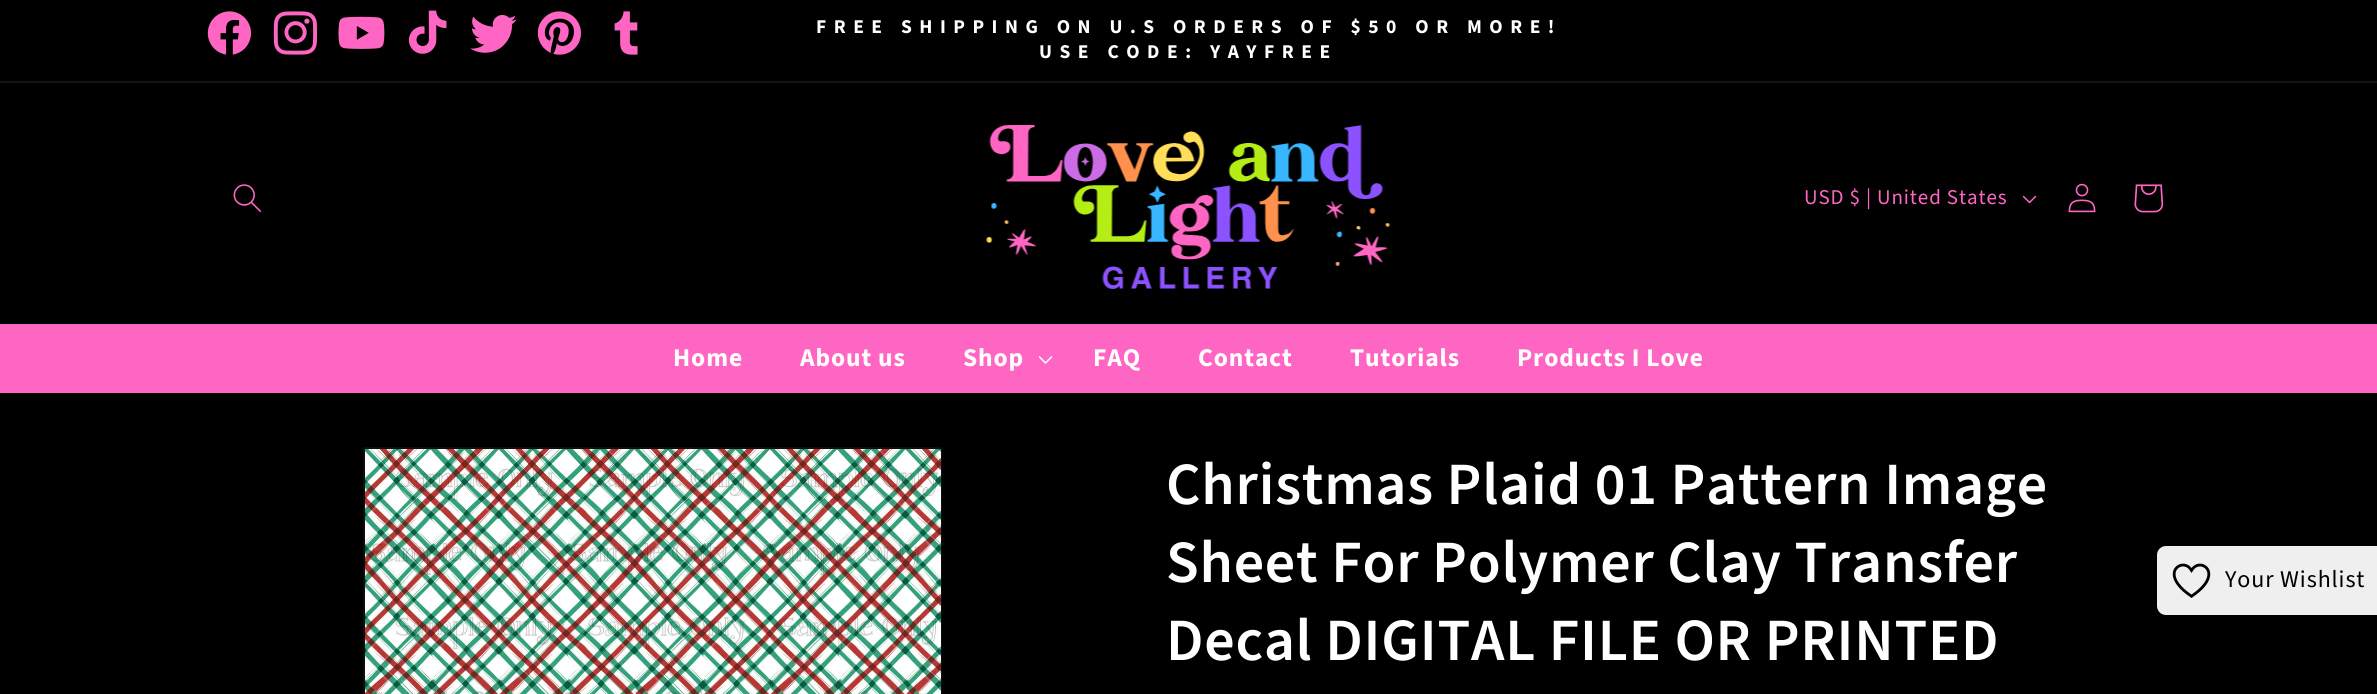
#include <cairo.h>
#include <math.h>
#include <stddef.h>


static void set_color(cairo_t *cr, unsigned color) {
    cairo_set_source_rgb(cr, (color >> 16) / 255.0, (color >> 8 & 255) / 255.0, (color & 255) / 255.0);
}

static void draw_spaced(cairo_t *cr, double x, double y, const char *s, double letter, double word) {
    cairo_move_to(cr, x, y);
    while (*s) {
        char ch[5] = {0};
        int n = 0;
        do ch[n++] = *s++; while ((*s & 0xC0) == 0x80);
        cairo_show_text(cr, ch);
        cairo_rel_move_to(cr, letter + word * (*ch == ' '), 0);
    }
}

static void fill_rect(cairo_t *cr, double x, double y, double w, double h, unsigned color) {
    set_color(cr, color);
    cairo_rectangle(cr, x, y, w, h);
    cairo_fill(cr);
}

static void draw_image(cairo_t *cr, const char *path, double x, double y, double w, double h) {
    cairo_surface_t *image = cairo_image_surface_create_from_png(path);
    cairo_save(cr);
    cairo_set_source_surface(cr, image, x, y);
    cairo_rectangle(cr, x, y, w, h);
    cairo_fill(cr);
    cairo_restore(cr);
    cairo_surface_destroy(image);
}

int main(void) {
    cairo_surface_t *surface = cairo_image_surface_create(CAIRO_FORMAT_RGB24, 2377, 694);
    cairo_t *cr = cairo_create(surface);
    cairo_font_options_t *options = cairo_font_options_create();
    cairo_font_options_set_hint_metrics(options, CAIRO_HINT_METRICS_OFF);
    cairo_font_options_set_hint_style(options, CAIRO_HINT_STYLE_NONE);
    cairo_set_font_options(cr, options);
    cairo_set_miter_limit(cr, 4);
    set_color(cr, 0x000000);
    cairo_paint(cr);
    fill_rect(cr, 0, 81, 2377, 2, 0x141414);
    draw_image(cr, "assets/img1.png", 207, 11, 44, 44);
    draw_image(cr, "assets/img2.png", 273, 11, 44, 44);
    draw_image(cr, "assets/img3.png", 338, 16, 47, 33);
    draw_image(cr, "assets/img4.png", 408, 10, 39, 44);
    draw_image(cr, "assets/img5.png", 470, 15, 47, 38);
    draw_image(cr, "assets/img6.png", 537, 11, 44, 44);
    draw_image(cr, "assets/img7.png", 614, 11, 24, 44);
    cairo_select_font_face(cr, "Source Sans Pro", CAIRO_FONT_SLANT_NORMAL, CAIRO_FONT_WEIGHT_BOLD);
    cairo_set_font_size(cr, 19.5);
    set_color(cr, 0xFFFFFF);
    draw_spaced(cr, 816, 33, "FREE SHIPPING ON U.S ORDERS OF $50 OR MORE!", 7.5, 0);
    draw_spaced(cr, 1039, 58, "USE CODE: YAYFREE", 7.5, 0);
    draw_image(cr, "assets/img8.png", 233, 184, 28, 28);
    draw_image(cr, "assets/img9.png", 986, 125, 404, 164);
    cairo_select_font_face(cr, "Source Sans Pro", CAIRO_FONT_SLANT_NORMAL, CAIRO_FONT_WEIGHT_NORMAL);
    cairo_set_font_size(cr, 21);
    set_color(cr, 0xFF66C4);
    draw_spaced(cr, 1804, 204, "USD $ | United States", 0.9, 0);
    draw_image(cr, "assets/img10.png", 2022, 195, 15, 9);
    draw_image(cr, "assets/img11.png", 2068, 183, 28, 30);
    draw_image(cr, "assets/img12.png", 2134, 184, 30, 29);
    fill_rect(cr, 0, 324, 2377, 69, 0xFF66C4);
    cairo_select_font_face(cr, "Source Sans Pro", CAIRO_FONT_SLANT_NORMAL, CAIRO_FONT_WEIGHT_BOLD);
    cairo_set_font_size(cr, 25.5);
    set_color(cr, 0xFFFFFF);
    draw_spaced(cr, 673, 366, "Home", 0.9, 0);
    draw_spaced(cr, 800, 366, "About us", 0.9, 0);
    draw_spaced(cr, 963, 366, "Shop", 0.9, 0);
    draw_image(cr, "assets/img13.png", 1038, 356, 15, 8);
    draw_spaced(cr, 1093, 366, "FAQ", 0.9, 0);
    draw_spaced(cr, 1198, 366, "Contact", 0.9, 0);
    draw_spaced(cr, 1350, 366, "Tutorials", 0.9, 0);
    draw_spaced(cr, 1517, 366, "Products I Love", 0.9, 0);
    cairo_rectangle(cr, 364, 448, 577, 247);
    set_color(cr, 0x0D0D0D);
    cairo_stroke(cr);
    draw_image(cr, "assets/img14.png", 365, 449, 576, 245);
    cairo_select_font_face(cr, "Source Sans Pro SemiBold", CAIRO_FONT_SLANT_NORMAL, CAIRO_FONT_WEIGHT_NORMAL);
    cairo_set_font_size(cr, 60);
    set_color(cr, 0xFFFFFF);
    draw_spaced(cr, 1166, 504, "Christmas Plaid 01 Pattern Image", 0.75, 0);
    draw_spaced(cr, 1166, 582, "Sheet For Polymer Clay Transfer", 0.75, 0);
    draw_spaced(cr, 1166, 660, "Decal DIGITAL FILE OR PRINTED", 0.75, 0);
    set_color(cr, 0xEFEFEF);
    cairo_new_path(cr);
    cairo_move_to(cr, 2166, 546);
    cairo_line_to(cr, 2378, 546);
    cairo_line_to(cr, 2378, 615);
    cairo_line_to(cr, 2166, 615);
    cairo_curve_to(cr, 2161, 615, 2157, 611, 2157, 606);
    cairo_line_to(cr, 2157, 555);
    cairo_curve_to(cr, 2157, 550, 2161, 546, 2166, 546);
    cairo_close_path(cr);
    cairo_fill(cr);
    draw_image(cr, "assets/img15.png", 2172, 563, 39, 35);
    cairo_select_font_face(cr, "Source Sans Pro", CAIRO_FONT_SLANT_NORMAL, CAIRO_FONT_WEIGHT_NORMAL);
    cairo_set_font_size(cr, 24);
    set_color(cr, 0x000000);
    draw_spaced(cr, 2225, 587, "Your Wishlist", 0.9, 0);
    cairo_surface_write_to_png(surface, "output.png");
    cairo_font_options_destroy(options);
    cairo_destroy(cr);
    cairo_surface_destroy(surface);
    return 0;
}
